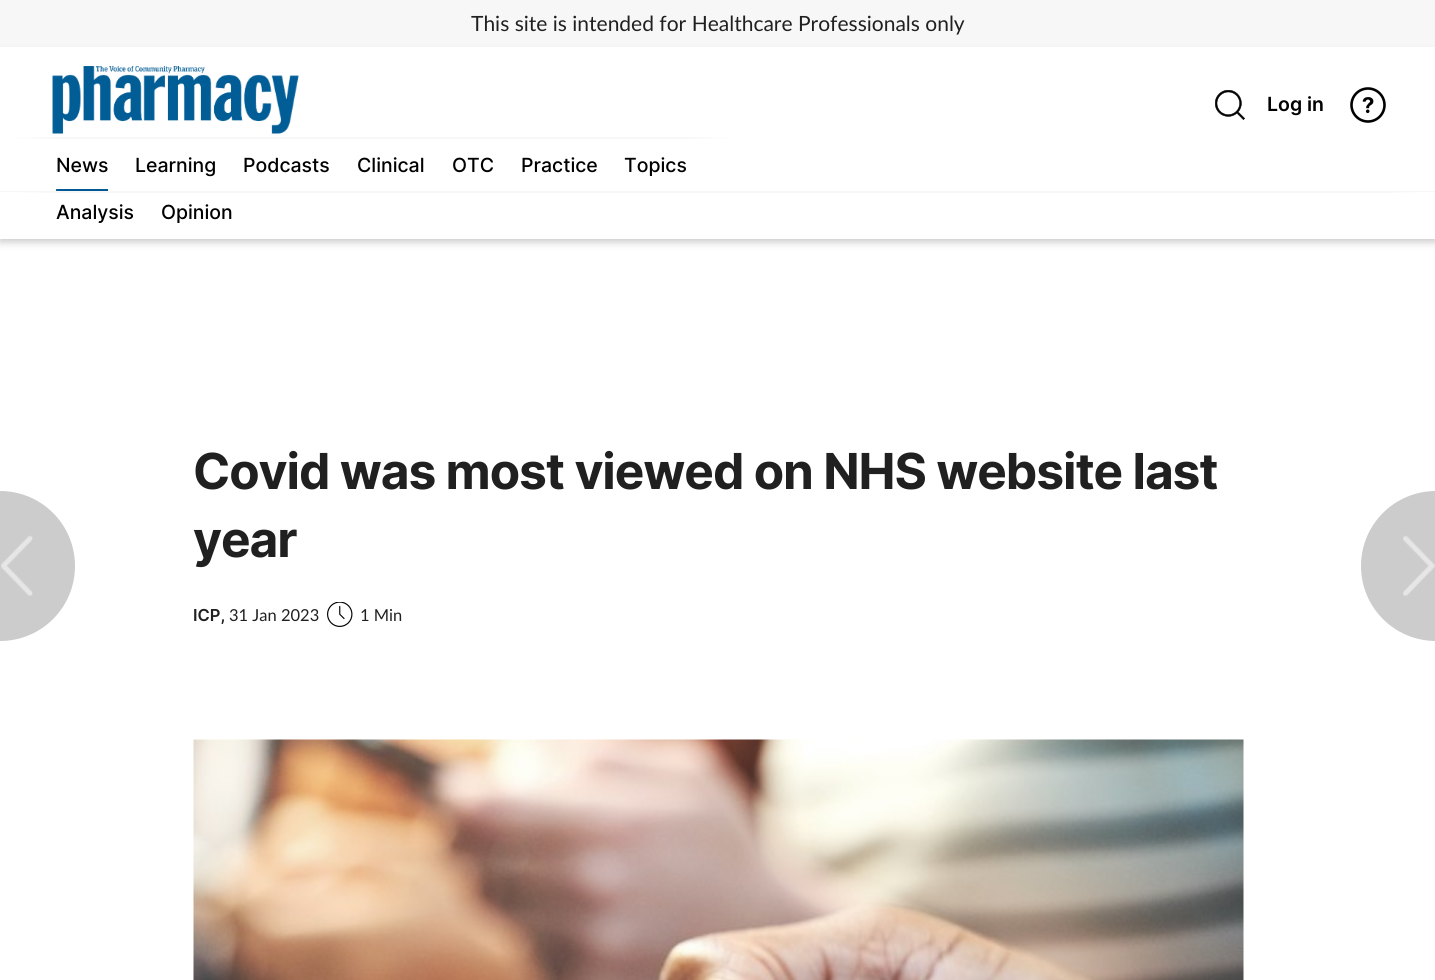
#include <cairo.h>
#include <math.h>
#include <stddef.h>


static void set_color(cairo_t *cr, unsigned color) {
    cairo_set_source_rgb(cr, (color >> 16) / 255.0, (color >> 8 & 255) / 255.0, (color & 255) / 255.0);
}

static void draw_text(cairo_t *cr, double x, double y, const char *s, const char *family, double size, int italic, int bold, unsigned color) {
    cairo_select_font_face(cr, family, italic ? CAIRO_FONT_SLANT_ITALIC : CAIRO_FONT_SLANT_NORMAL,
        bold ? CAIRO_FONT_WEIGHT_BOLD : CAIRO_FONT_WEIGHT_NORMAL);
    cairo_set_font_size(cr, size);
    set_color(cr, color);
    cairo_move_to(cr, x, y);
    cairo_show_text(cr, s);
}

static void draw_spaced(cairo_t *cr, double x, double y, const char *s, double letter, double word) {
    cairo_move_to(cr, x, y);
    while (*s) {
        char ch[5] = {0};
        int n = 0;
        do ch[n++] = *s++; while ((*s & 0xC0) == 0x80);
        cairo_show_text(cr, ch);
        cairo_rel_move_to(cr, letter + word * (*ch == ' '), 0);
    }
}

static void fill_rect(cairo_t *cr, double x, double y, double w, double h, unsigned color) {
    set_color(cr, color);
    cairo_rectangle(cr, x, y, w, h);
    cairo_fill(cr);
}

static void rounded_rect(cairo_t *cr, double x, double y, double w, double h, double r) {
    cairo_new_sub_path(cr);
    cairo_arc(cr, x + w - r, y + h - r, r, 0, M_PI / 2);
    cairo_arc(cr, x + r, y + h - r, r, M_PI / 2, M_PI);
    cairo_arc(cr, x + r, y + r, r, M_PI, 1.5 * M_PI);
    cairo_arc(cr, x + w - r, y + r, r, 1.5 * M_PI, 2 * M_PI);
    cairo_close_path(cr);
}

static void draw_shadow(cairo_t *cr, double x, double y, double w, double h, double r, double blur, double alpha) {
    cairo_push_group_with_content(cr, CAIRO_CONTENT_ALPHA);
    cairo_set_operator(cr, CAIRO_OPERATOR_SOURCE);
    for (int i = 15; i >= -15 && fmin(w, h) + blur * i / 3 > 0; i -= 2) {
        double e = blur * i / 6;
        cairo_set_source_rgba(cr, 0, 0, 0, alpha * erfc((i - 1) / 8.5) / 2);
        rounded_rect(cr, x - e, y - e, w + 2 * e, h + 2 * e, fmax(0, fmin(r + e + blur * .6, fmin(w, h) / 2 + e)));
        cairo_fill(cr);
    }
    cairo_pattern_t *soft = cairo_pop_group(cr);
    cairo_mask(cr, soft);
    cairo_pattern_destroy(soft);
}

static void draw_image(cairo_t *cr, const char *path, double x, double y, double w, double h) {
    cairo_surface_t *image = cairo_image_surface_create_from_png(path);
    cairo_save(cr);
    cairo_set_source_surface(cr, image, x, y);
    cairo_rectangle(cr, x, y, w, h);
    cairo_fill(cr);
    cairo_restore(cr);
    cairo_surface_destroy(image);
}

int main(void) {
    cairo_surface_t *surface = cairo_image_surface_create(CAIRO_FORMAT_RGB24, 1435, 980);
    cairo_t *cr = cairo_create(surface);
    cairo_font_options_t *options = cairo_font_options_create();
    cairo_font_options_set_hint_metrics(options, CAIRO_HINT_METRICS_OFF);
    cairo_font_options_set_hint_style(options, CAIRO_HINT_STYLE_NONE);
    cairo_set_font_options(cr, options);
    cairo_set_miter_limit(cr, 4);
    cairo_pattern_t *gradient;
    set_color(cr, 0xFFFFFF);
    cairo_paint(cr);
    fill_rect(cr, 0, 0, 1435, 47, 0xF7F7F7);
    draw_text(cr, 471, 31, "This site is intended for Healthcare Professionals only", "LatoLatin", 21, 0, 0, 0x202020);
    set_color(cr, 0xC9C9C9);
    draw_shadow(cr, 0, 53, 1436, 189, 0, 4, 1);
    fill_rect(cr, 0, 47, 1435, 144, 0xFFFFFF);
    draw_image(cr, "assets/img1.png", 52, 66, 247, 68);
    draw_image(cr, "assets/img2.png", 1215, 90, 30, 30);
    draw_text(cr, 1267, 111, "Log in", "Inter SemiBold", 19.5, 0, 0, 0x000000);
    draw_image(cr, "assets/img3.png", 1350, 87, 36, 36);
    fill_rect(cr, 12, 137, 719, 2, 0xF7F7F7);
    draw_text(cr, 56, 172, "News", "Inter Medium", 19.5, 0, 0, 0x000000);
    fill_rect(cr, 56, 189, 52, 2, 0x005995);
    gradient = cairo_pattern_create_linear(60, 168, 0, 168);
    cairo_pattern_add_color_stop_rgba(gradient, 0, 1, 1, 1, 0);
    cairo_pattern_add_color_stop_rgba(gradient, 0.8, 1, 1, 1, 1);
    cairo_set_source(cr, gradient);
    cairo_pattern_destroy(gradient);
    cairo_rectangle(cr, 12, 137, 47, 54);
    cairo_fill(cr);
    draw_text(cr, 135, 172, "Learning", "Inter Medium", 19.5, 0, 0, 0x000000);
    draw_text(cr, 243, 172, "Podcasts", "Inter Medium", 19.5, 0, 0, 0x000000);
    draw_text(cr, 357, 172, "Clinical", "Inter Medium", 19.5, 0, 0, 0x000000);
    draw_text(cr, 452, 172, "OTC", "Inter Medium", 19.5, 0, 0, 0x000000);
    draw_text(cr, 521, 172, "Practice", "Inter Medium", 19.5, 0, 0, 0x000000);
    draw_text(cr, 624, 172, "Topics", "Inter Medium", 19.5, 0, 0, 0x000000);
    fill_rect(cr, 12, 193, 1412, 46, 0xFFFFFF);
    fill_rect(cr, 0, 191, 1435, 2, 0xF7F7F7);
    draw_text(cr, 56, 219, "Analysis", "Inter Medium", 19.5, 0, 0, 0x000000);
    gradient = cairo_pattern_create_linear(60, 215, 0, 215);
    cairo_pattern_add_color_stop_rgba(gradient, 0, 1, 1, 1, 0);
    cairo_pattern_add_color_stop_rgba(gradient, 0.8, 1, 1, 1, 1);
    cairo_set_source(cr, gradient);
    cairo_pattern_destroy(gradient);
    cairo_rectangle(cr, 0, 192, 59, 47);
    cairo_fill(cr);
    gradient = cairo_pattern_create_linear(1376, 215, 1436, 215);
    cairo_pattern_add_color_stop_rgba(gradient, 0, 1, 1, 1, 0);
    cairo_pattern_add_color_stop_rgba(gradient, 0.8, 1, 1, 1, 1);
    cairo_set_source(cr, gradient);
    cairo_pattern_destroy(gradient);
    cairo_rectangle(cr, 1392, 192, 43, 47);
    cairo_fill(cr);
    draw_text(cr, 161, 219, "Opinion", "Inter Medium", 19.5, 0, 0, 0x000000);
    gradient = cairo_pattern_create_linear(683, 168, 743, 168);
    cairo_pattern_add_color_stop_rgba(gradient, 0, 1, 1, 1, 0);
    cairo_pattern_add_color_stop_rgba(gradient, 0.8, 1, 1, 1, 1);
    cairo_set_source(cr, gradient);
    cairo_pattern_destroy(gradient);
    cairo_rectangle(cr, 684, 137, 47, 35);
    cairo_fill(cr);
    cairo_select_font_face(cr, "Inter", CAIRO_FONT_SLANT_NORMAL, CAIRO_FONT_WEIGHT_BOLD);
    cairo_set_font_size(cr, 49.6);
    set_color(cr, 0x202020);
    draw_spaced(cr, 193, 489, "Covid was most viewed on NHS website last", -1.1, 0);
    draw_spaced(cr, 193, 557, "year", -1.1, 0);
    draw_text(cr, 193, 621, "ICP,", "Inter SemiBold", 16.5, 0, 0, 0x202020);
    draw_text(cr, 229, 621, "31 Jan 2023", "LatoLatin", 16.5, 0, 0, 0x202020);
    draw_image(cr, "assets/img4.png", 327, 602, 26, 25);
    draw_text(cr, 360, 621, "1 Min", "LatoLatin", 16.5, 0, 0, 0x202020);
    set_color(cr, 0xCCCCCC);
    cairo_new_path(cr);
    cairo_move_to(cr, 0, 491);
    cairo_curve_to(cr, 41.5, 491, 75, 524.5, 75, 566);
    cairo_curve_to(cr, 75, 607.5, 41.5, 641, 0, 641);
    cairo_close_path(cr);
    cairo_fill(cr);
    draw_image(cr, "assets/img5.png", 1, 535, 32, 61);
    cairo_new_path(cr);
    cairo_move_to(cr, 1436, 491);
    cairo_line_to(cr, 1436, 641);
    cairo_curve_to(cr, 1394.5, 641, 1361, 607.5, 1361, 566);
    cairo_curve_to(cr, 1361, 524.5, 1394.5, 491, 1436, 491);
    cairo_close_path(cr);
    cairo_fill(cr);
    draw_image(cr, "assets/img6.png", 1403, 535, 32, 61);
    draw_image(cr, "assets/img7.png", 193, 739, 1051, 241);
    cairo_surface_write_to_png(surface, "output.png");
    cairo_font_options_destroy(options);
    cairo_destroy(cr);
    cairo_surface_destroy(surface);
    return 0;
}
